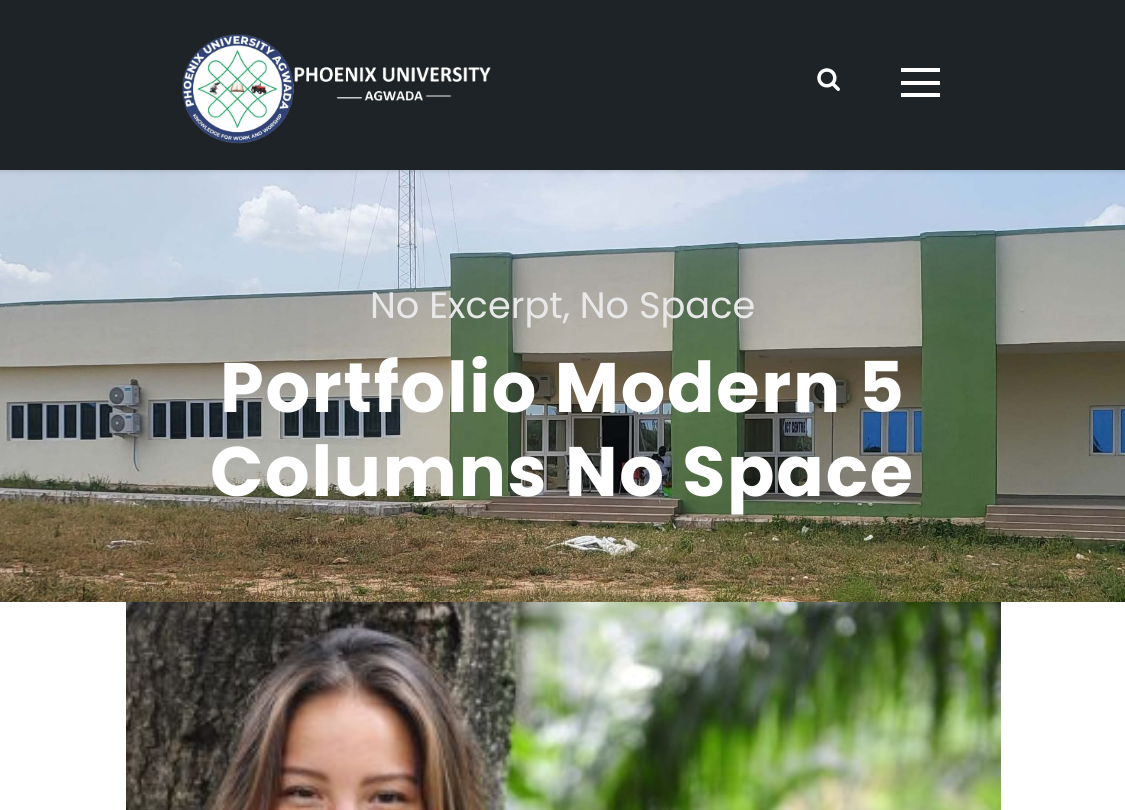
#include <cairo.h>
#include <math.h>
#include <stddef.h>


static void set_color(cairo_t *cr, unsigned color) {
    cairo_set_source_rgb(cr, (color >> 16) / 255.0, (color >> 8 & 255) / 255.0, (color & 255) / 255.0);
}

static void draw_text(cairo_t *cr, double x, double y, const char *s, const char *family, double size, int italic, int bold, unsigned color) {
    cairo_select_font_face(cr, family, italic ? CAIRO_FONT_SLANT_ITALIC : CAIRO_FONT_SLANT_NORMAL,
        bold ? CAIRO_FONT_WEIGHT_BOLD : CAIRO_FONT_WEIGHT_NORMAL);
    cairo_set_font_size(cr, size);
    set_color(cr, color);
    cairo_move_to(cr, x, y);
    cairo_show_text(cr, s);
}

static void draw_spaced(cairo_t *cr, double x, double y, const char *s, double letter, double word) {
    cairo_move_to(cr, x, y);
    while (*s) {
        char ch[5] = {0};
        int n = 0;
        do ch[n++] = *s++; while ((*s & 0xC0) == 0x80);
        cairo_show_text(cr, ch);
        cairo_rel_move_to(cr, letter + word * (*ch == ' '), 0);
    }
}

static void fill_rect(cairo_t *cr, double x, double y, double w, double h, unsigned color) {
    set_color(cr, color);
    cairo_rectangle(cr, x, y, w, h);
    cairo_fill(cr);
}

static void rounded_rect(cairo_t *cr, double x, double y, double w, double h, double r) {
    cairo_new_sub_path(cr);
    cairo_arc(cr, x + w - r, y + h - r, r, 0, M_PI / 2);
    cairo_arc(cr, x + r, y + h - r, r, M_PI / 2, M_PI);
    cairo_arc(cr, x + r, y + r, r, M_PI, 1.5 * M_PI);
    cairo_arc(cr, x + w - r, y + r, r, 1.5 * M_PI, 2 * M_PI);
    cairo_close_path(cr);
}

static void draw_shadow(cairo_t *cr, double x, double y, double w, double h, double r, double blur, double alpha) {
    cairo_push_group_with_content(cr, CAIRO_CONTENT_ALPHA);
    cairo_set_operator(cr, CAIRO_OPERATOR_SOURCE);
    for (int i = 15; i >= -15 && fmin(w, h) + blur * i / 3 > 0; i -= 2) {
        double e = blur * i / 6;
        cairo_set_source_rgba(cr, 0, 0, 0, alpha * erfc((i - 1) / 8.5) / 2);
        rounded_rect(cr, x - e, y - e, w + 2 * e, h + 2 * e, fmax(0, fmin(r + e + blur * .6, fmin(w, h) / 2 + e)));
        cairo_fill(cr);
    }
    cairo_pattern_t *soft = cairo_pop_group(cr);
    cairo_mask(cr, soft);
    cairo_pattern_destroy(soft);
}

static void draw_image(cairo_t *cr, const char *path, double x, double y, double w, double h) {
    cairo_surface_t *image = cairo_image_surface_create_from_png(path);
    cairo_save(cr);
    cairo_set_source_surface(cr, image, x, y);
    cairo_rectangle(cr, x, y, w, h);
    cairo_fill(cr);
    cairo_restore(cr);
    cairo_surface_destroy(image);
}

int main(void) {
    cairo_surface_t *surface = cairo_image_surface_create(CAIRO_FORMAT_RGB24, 1125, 810);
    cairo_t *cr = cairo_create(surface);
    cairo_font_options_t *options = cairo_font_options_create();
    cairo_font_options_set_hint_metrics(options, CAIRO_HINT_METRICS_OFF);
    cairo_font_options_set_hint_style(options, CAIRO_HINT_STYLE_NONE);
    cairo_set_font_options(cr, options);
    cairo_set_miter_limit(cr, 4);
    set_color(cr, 0xFFFFFF);
    cairo_paint(cr);
    draw_image(cr, "assets/img3.png", 0, 170, 1125, 432);
    set_color(cr, 0x000000);
    draw_shadow(cr, 0, 2, 1125, 170, 0, 2, 0.1);
    fill_rect(cr, 0, 0, 1125, 170, 0x1D2327);
    draw_image(cr, "assets/img1.png", 182, 34, 309, 110);
    draw_image(cr, "assets/img2.png", 817, 68, 23, 23);
    fill_rect(cr, 901, 68, 39, 4, 0xFFFFFF);
    fill_rect(cr, 901, 81, 39, 4, 0xFFFFFF);
    fill_rect(cr, 901, 93, 39, 4, 0xFFFFFF);
    draw_text(cr, 370, 318, "No Excerpt, No Space", "Poppins", 36.75, 0, 0, 0xE8E8E8);
    cairo_select_font_face(cr, "Poppins", CAIRO_FONT_SLANT_NORMAL, CAIRO_FONT_WEIGHT_BOLD);
    cairo_set_font_size(cr, 70);
    set_color(cr, 0xFFFFFF);
    draw_spaced(cr, 220, 412, "Portfolio Modern 5", 1.75, 0);
    draw_spaced(cr, 210, 496, "Columns No Space", 1.75, 0);
    draw_image(cr, "assets/img4.png", 126, 602, 875, 208);
    cairo_surface_write_to_png(surface, "output.png");
    cairo_font_options_destroy(options);
    cairo_destroy(cr);
    cairo_surface_destroy(surface);
    return 0;
}
